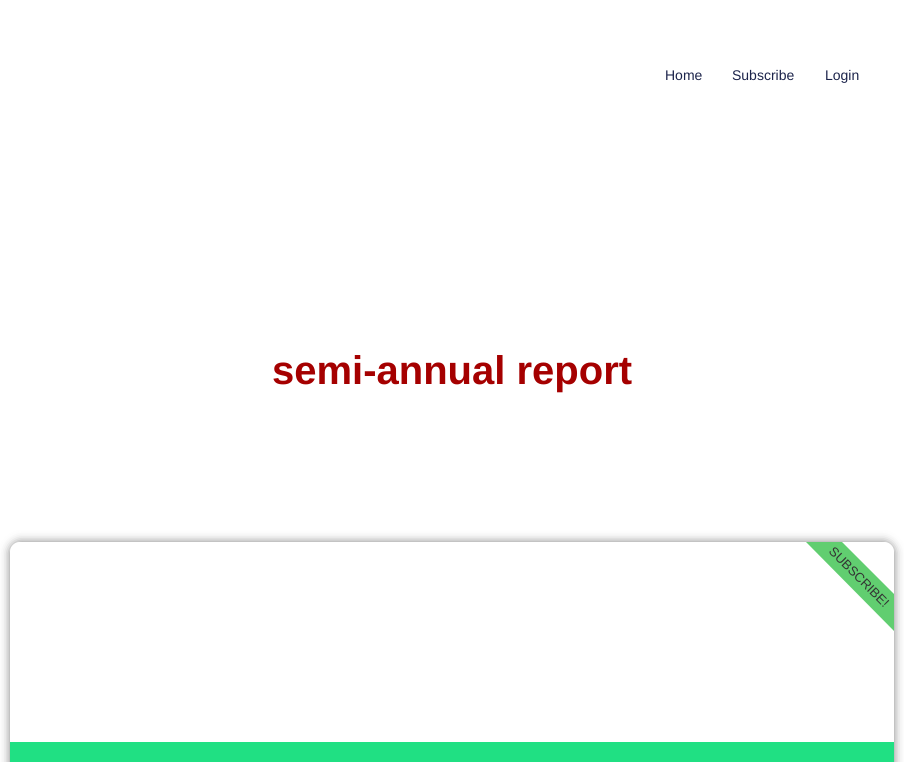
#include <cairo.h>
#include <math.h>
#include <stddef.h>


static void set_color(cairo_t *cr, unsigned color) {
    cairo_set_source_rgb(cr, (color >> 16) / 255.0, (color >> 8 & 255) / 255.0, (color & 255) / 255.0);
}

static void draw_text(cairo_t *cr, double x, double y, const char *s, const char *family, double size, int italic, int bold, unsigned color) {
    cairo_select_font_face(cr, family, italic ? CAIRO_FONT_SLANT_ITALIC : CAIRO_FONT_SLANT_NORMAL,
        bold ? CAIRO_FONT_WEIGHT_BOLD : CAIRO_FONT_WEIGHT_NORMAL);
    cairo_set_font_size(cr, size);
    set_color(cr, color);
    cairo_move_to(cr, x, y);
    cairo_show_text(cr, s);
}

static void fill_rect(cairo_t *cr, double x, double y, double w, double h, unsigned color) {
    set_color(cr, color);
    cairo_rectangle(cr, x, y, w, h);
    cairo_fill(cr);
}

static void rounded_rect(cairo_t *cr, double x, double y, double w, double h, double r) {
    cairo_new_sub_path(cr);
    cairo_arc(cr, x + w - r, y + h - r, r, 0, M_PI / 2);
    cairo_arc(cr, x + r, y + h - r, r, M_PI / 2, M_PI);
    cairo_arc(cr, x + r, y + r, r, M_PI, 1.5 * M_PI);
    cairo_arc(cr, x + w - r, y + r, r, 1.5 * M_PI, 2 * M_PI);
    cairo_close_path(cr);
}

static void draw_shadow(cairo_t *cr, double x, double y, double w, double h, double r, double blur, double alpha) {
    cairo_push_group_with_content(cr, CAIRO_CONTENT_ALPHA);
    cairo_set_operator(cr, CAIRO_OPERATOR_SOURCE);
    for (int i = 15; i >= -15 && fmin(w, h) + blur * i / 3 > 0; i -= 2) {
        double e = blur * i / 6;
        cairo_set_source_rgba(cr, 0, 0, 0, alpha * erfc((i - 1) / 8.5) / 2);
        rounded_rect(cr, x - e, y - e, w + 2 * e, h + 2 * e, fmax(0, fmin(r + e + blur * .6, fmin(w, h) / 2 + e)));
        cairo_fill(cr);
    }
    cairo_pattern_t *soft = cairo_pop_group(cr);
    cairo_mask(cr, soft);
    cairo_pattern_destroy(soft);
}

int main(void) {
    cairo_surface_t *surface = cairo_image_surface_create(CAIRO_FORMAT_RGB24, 904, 762);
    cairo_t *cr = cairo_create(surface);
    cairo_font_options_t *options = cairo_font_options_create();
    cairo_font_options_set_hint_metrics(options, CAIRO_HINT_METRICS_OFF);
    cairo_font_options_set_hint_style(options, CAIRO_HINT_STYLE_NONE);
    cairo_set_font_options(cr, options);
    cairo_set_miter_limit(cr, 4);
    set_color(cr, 0xFFFFFF);
    cairo_paint(cr);
    draw_text(cr, 665, 80, "Home", "Liberation Sans", 14, 0, 0, 0x1C244B);
    draw_text(cr, 732, 80, "Subscribe", "Liberation Sans", 14, 0, 0, 0x1C244B);
    draw_text(cr, 825, 80, "Login", "Liberation Sans", 14, 0, 0, 0x1C244B);
    draw_text(cr, 272, 384, "semi-annual report", "Liberation Sans", 40, 0, 1, 0xA50000);
    cairo_save(cr);
    cairo_set_fill_rule(cr, CAIRO_FILL_RULE_EVEN_ODD);
    cairo_new_path(cr);
    cairo_move_to(cr, 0, 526);
    cairo_line_to(cr, 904, 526);
    cairo_line_to(cr, 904, 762);
    cairo_line_to(cr, 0, 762);
    cairo_close_path(cr);
    cairo_move_to(cr, 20, 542);
    cairo_line_to(cr, 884, 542);
    cairo_curve_to(cr, 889.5, 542, 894, 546.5, 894, 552);
    cairo_line_to(cr, 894, 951);
    cairo_curve_to(cr, 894, 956.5, 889.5, 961, 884, 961);
    cairo_line_to(cr, 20, 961);
    cairo_curve_to(cr, 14.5, 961, 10, 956.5, 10, 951);
    cairo_line_to(cr, 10, 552);
    cairo_curve_to(cr, 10, 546.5, 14.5, 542, 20, 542);
    cairo_close_path(cr);
    cairo_clip(cr);
    set_color(cr, 0x000000);
    draw_shadow(cr, 10, 542, 884, 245, 10, 5, 0.5);
    cairo_restore(cr);
    set_color(cr, 0x61CE70);
    cairo_new_path(cr);
    cairo_move_to(cr, 894, 631);
    cairo_line_to(cr, 894, 594);
    cairo_line_to(cr, 842, 542);
    cairo_line_to(cr, 806, 542);
    cairo_close_path(cr);
    cairo_fill(cr);
    cairo_save(cr);
    cairo_translate(cr, 828, 552);
    cairo_rotate(cr, 45 * M_PI / 180);
    draw_text(cr, 0, 0, "SUBSCRIBE!", "Liberation Sans", 13, 0, 0, 0x333333);
    cairo_restore(cr);
    fill_rect(cr, 10, 742, 884, 20, 0x20E083);
    cairo_surface_write_to_png(surface, "output.png");
    cairo_font_options_destroy(options);
    cairo_destroy(cr);
    cairo_surface_destroy(surface);
    return 0;
}
